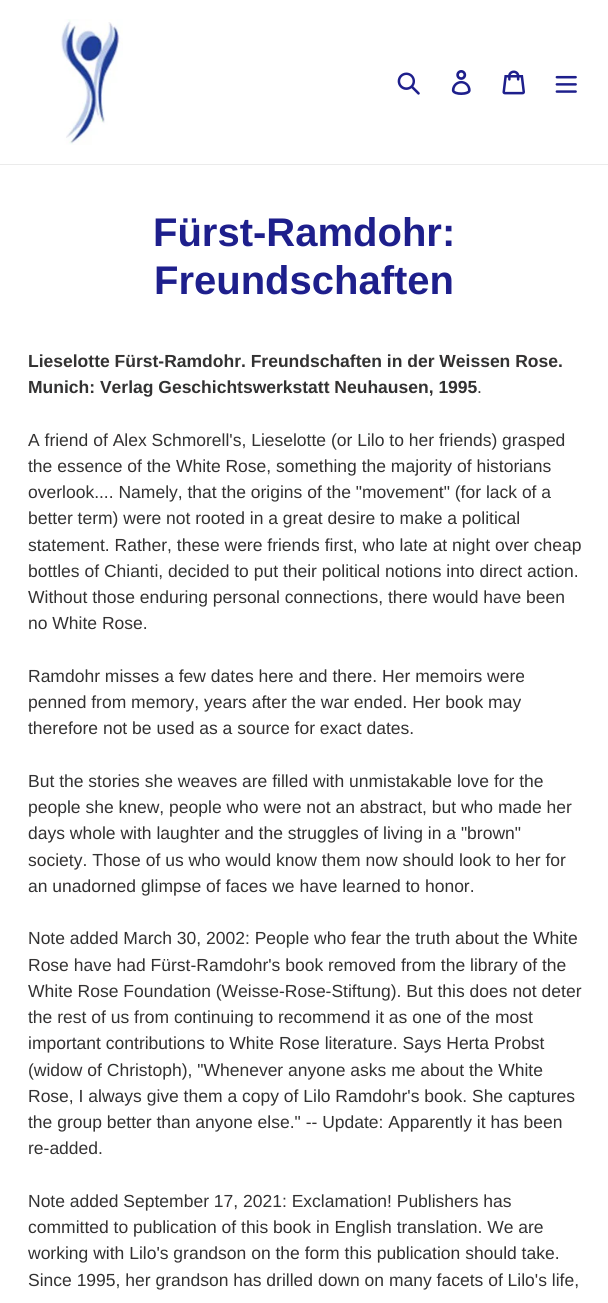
#include <cairo.h>
#include <math.h>
#include <stddef.h>


static void set_color(cairo_t *cr, unsigned color) {
    cairo_set_source_rgb(cr, (color >> 16) / 255.0, (color >> 8 & 255) / 255.0, (color & 255) / 255.0);
}

static void draw_text(cairo_t *cr, double x, double y, const char *s, const char *family, double size, int italic, int bold, unsigned color) {
    cairo_select_font_face(cr, family, italic ? CAIRO_FONT_SLANT_ITALIC : CAIRO_FONT_SLANT_NORMAL,
        bold ? CAIRO_FONT_WEIGHT_BOLD : CAIRO_FONT_WEIGHT_NORMAL);
    cairo_set_font_size(cr, size);
    set_color(cr, color);
    cairo_move_to(cr, x, y);
    cairo_show_text(cr, s);
}

static void fill_rect(cairo_t *cr, double x, double y, double w, double h, unsigned color) {
    set_color(cr, color);
    cairo_rectangle(cr, x, y, w, h);
    cairo_fill(cr);
}

static void draw_image(cairo_t *cr, const char *path, double x, double y, double w, double h) {
    cairo_surface_t *image = cairo_image_surface_create_from_png(path);
    cairo_save(cr);
    cairo_set_source_surface(cr, image, x, y);
    cairo_rectangle(cr, x, y, w, h);
    cairo_fill(cr);
    cairo_restore(cr);
    cairo_surface_destroy(image);
}

int main(void) {
    cairo_surface_t *surface = cairo_image_surface_create(CAIRO_FORMAT_RGB24, 608, 1303);
    cairo_t *cr = cairo_create(surface);
    cairo_font_options_t *options = cairo_font_options_create();
    cairo_font_options_set_hint_metrics(options, CAIRO_HINT_METRICS_OFF);
    cairo_font_options_set_hint_style(options, CAIRO_HINT_STYLE_NONE);
    cairo_set_font_options(cr, options);
    cairo_set_miter_limit(cr, 4);
    set_color(cr, 0xFFFFFF);
    cairo_paint(cr);
    fill_rect(cr, 0, 164, 608, 1, 0xEBEBEB);
    draw_image(cr, "assets/img1.png", 60, 19, 63, 126);
    draw_image(cr, "assets/img2.png", 397, 72, 23, 23);
    draw_image(cr, "assets/img3.png", 451, 70, 20, 25);
    draw_image(cr, "assets/img4.png", 502, 70, 23, 25);
    draw_image(cr, "assets/img5.png", 555, 75, 22, 18);
    draw_text(cr, 153, 246, "Fürst-Ramdohr:", "Liberation Sans", 40, 0, 1, 0x1E1F8C);
    draw_text(cr, 154, 294, "Freundschaften", "Liberation Sans", 40, 0, 1, 0x1E1F8C);
    draw_text(cr, 28, 367, "Lieselotte Fürst-Ramdohr. Freundschaften in der Weissen Rose.", "Liberation Sans", 17.5, 0, 1, 0x333232);
    draw_text(cr, 28, 393, "Munich: Verlag Geschichtswerkstatt Neuhausen, 1995", "Liberation Sans", 17.5, 0, 1, 0x333232);
    draw_text(cr, 477, 393, ".", "Liberation Sans", 17.5, 0, 0, 0x333232);
    draw_text(cr, 28, 446, "A friend of Alex Schmorell's, Lieselotte (or Lilo to her friends) grasped", "Liberation Sans", 17.5, 0, 0, 0x333232);
    draw_text(cr, 28, 472, "the essence of the White Rose, something the majority of historians", "Liberation Sans", 17.5, 0, 0, 0x333232);
    draw_text(cr, 28, 498, "overlook.... Namely, that the origins of the \"movement\" (for lack of a", "Liberation Sans", 17.5, 0, 0, 0x333232);
    draw_text(cr, 28, 524, "better term) were not rooted in a great desire to make a political", "Liberation Sans", 17.5, 0, 0, 0x333232);
    draw_text(cr, 28, 551, "statement. Rather, these were friends first, who late at night over cheap", "Liberation Sans", 17.5, 0, 0, 0x333232);
    draw_text(cr, 28, 577, "bottles of Chianti, decided to put their political notions into direct action.", "Liberation Sans", 17.5, 0, 0, 0x333232);
    draw_text(cr, 28, 603, "Without those enduring personal connections, there would have been", "Liberation Sans", 17.5, 0, 0, 0x333232);
    draw_text(cr, 28, 629, "no White Rose.", "Liberation Sans", 17.5, 0, 0, 0x333232);
    draw_text(cr, 28, 682, "Ramdohr misses a few dates here and there. Her memoirs were", "Liberation Sans", 17.5, 0, 0, 0x333232);
    draw_text(cr, 28, 708, "penned from memory, years after the war ended. Her book may", "Liberation Sans", 17.5, 0, 0, 0x333232);
    draw_text(cr, 28, 734, "therefore not be used as a source for exact dates.", "Liberation Sans", 17.5, 0, 0, 0x333232);
    draw_text(cr, 28, 787, "But the stories she weaves are filled with unmistakable love for the", "Liberation Sans", 17.5, 0, 0, 0x333232);
    draw_text(cr, 28, 813, "people she knew, people who were not an abstract, but who made her", "Liberation Sans", 17.5, 0, 0, 0x333232);
    draw_text(cr, 28, 839, "days whole with laughter and the struggles of living in a \"brown\"", "Liberation Sans", 17.5, 0, 0, 0x333232);
    draw_text(cr, 28, 866, "society. Those of us who would know them now should look to her for", "Liberation Sans", 17.5, 0, 0, 0x333232);
    draw_text(cr, 28, 892, "an unadorned glimpse of faces we have learned to honor.", "Liberation Sans", 17.5, 0, 0, 0x333232);
    draw_text(cr, 28, 944, "Note added March 30, 2002: People who fear the truth about the White", "Liberation Sans", 17.5, 0, 0, 0x333232);
    draw_text(cr, 28, 971, "Rose have had Fürst-Ramdohr's book removed from the library of the", "Liberation Sans", 17.5, 0, 0, 0x333232);
    draw_text(cr, 28, 997, "White Rose Foundation (Weisse-Rose-Stiftung). But this does not deter", "Liberation Sans", 17.5, 0, 0, 0x333232);
    draw_text(cr, 28, 1023, "the rest of us from continuing to recommend it as one of the most", "Liberation Sans", 17.5, 0, 0, 0x333232);
    draw_text(cr, 28, 1049, "important contributions to White Rose literature. Says Herta Probst", "Liberation Sans", 17.5, 0, 0, 0x333232);
    draw_text(cr, 28, 1076, "(widow of Christoph), \"Whenever anyone asks me about the White", "Liberation Sans", 17.5, 0, 0, 0x333232);
    draw_text(cr, 28, 1102, "Rose, I always give them a copy of Lilo Ramdohr's book. She captures", "Liberation Sans", 17.5, 0, 0, 0x333232);
    draw_text(cr, 28, 1128, "the group better than anyone else.\" -- Update: Apparently it has been", "Liberation Sans", 17.5, 0, 0, 0x333232);
    draw_text(cr, 28, 1154, "re-added.", "Liberation Sans", 17.5, 0, 0, 0x333232);
    draw_text(cr, 28, 1207, "Note added September 17, 2021: Exclamation! Publishers has", "Liberation Sans", 17.5, 0, 0, 0x333232);
    draw_text(cr, 28, 1233, "committed to publication of this book in English translation. We are", "Liberation Sans", 17.5, 0, 0, 0x333232);
    draw_text(cr, 28, 1259, "working with Lilo's grandson on the form this publication should take.", "Liberation Sans", 17.5, 0, 0, 0x333232);
    draw_text(cr, 28, 1286, "Since 1995, her grandson has drilled down on many facets of Lilo's life,", "Liberation Sans", 17.5, 0, 0, 0x333232);
    cairo_surface_write_to_png(surface, "output.png");
    cairo_font_options_destroy(options);
    cairo_destroy(cr);
    cairo_surface_destroy(surface);
    return 0;
}
